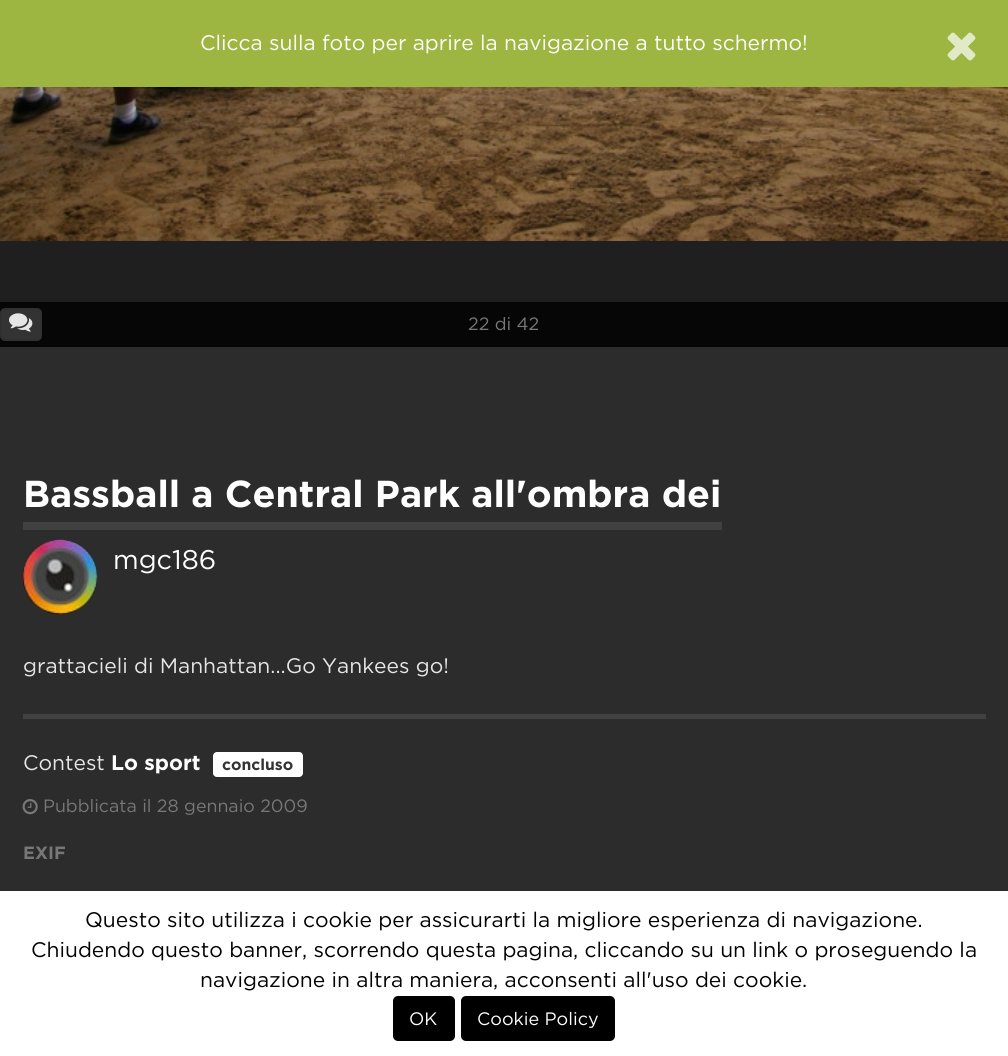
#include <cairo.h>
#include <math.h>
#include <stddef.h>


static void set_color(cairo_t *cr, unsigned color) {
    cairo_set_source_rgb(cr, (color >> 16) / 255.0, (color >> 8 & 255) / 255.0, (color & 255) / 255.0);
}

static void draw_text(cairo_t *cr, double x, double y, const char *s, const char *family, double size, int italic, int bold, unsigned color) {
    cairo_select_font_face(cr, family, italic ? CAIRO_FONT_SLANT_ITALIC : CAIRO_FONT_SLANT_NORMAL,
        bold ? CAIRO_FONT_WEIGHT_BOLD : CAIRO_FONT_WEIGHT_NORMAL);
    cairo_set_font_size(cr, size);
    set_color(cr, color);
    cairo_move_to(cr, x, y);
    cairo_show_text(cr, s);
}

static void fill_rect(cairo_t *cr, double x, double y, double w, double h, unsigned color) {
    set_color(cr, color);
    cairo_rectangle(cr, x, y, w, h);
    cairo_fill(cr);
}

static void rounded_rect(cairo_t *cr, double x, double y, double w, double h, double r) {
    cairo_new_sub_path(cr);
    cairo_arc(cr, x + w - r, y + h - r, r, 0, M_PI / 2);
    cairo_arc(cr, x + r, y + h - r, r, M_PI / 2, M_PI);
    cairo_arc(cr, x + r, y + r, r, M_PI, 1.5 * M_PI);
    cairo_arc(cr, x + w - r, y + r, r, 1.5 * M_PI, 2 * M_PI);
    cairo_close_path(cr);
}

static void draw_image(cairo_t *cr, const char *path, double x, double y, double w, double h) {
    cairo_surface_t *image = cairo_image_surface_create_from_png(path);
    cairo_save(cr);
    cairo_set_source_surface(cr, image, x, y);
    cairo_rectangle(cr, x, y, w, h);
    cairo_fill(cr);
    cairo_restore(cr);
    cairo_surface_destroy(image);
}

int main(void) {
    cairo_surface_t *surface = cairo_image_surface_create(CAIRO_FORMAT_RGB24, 1008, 1056);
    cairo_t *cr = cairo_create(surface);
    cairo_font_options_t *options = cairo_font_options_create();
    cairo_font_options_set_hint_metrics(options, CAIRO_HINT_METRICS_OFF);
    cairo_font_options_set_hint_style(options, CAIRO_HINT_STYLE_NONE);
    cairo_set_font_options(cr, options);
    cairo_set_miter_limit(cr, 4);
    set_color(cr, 0x2C2C2C);
    cairo_paint(cr);
    fill_rect(cr, 0, 0, 1008, 87, 0x9CB641);
    draw_text(cr, 200, 50, "Clicca sulla foto per aprire la navigazione a tutto schermo!", "Gotham", 21, 0, 0, 0xFFFFFF);
    draw_image(cr, "assets/img1.png", 947, 32, 29, 29);
    fill_rect(cr, 0, 241, 1008, 61, 0x1F1F1F);
    draw_image(cr, "assets/img2.png", 0, 87, 1008, 154);
    fill_rect(cr, 0, 302, 1008, 45, 0x060606);
    set_color(cr, 0x333333);
    rounded_rect(cr, 1, 309, 40, 31, 4);
    cairo_fill_preserve(cr);
    set_color(cr, 0x303030);
    cairo_stroke(cr);
    draw_image(cr, "assets/img3.png", 9, 313, 24, 19);
    draw_text(cr, 468, 330, "22 di 42", "Gotham", 17.8, 0, 0, 0x777777);
    draw_text(cr, 23, 507, "Bassball a Central Park all'ombra dei", "Gotham", 37.5, 0, 1, 0xFFFFFF);
    fill_rect(cr, 23, 522, 699, 8, 0x414141);
    draw_image(cr, "assets/img4.png", 22, 539, 76, 76);
    draw_text(cr, 113, 569, "mgc186", "Gotham", 27, 0, 0, 0xFFFFFF);
    draw_text(cr, 23, 673, "grattacieli di Manhattan...Go Yankees go!", "Gotham", 21, 0, 0, 0xE6E6E6);
    fill_rect(cr, 23, 714, 963, 5, 0x414141);
    draw_text(cr, 23, 770, "Contest", "Gotham", 21, 0, 0, 0xE6E6E6);
    draw_text(cr, 111, 770, "Lo sport", "Gotham", 21, 0, 1, 0xFFFFFF);
    rounded_rect(cr, 213, 752, 90, 25, 4);
    cairo_fill(cr);
    draw_text(cr, 222, 770, "concluso", "Gotham", 15.75, 0, 1, 0x333333);
    draw_image(cr, "assets/img5.png", 22, 799, 16, 16);
    draw_text(cr, 43, 812, "Pubblicata il 28 gennaio 2009", "Gotham", 17.8, 0, 0, 0x777777);
    draw_text(cr, 23, 859, "EXIF", "Gotham", 17.8, 0, 1, 0x777777);
    fill_rect(cr, 0, 891, 1008, 165, 0xFFFFFF);
    draw_text(cr, 85, 927, "Questo sito utilizza i cookie per assicurarti la migliore esperienza di navigazione.", "Gotham", 21, 0, 0, 0x000000);
    draw_text(cr, 31, 957, "Chiudendo questo banner, scorrendo questa pagina, cliccando su un link o proseguendo la", "Gotham", 21, 0, 0, 0x000000);
    draw_text(cr, 200, 987, "navigazione in altra maniera, acconsenti all'uso dei cookie.", "Gotham", 21, 0, 0, 0x000000);
    rounded_rect(cr, 393, 996, 62, 45, 5);
    cairo_fill(cr);
    draw_text(cr, 409, 1025, "OK", "Gotham", 18, 0, 0, 0xFFFFFF);
    set_color(cr, 0x000000);
    rounded_rect(cr, 461, 996, 154, 45, 5);
    cairo_fill(cr);
    draw_text(cr, 477, 1025, "Cookie Policy", "Gotham", 18, 0, 0, 0xFFFFFF);
    cairo_surface_write_to_png(surface, "output.png");
    cairo_font_options_destroy(options);
    cairo_destroy(cr);
    cairo_surface_destroy(surface);
    return 0;
}
